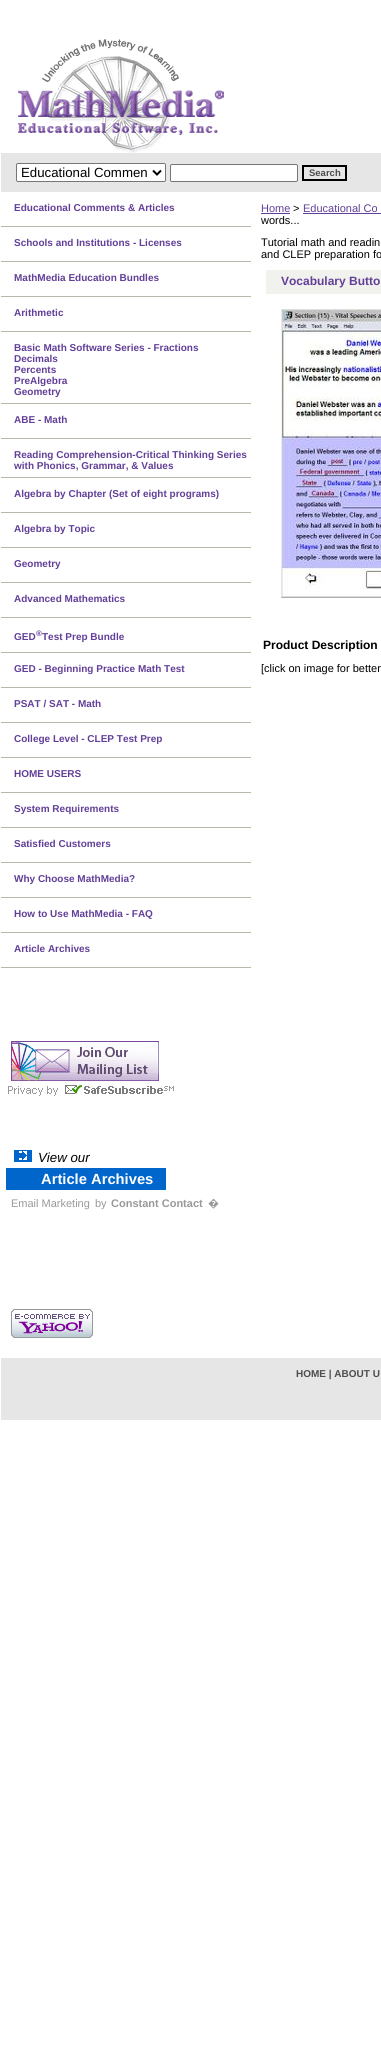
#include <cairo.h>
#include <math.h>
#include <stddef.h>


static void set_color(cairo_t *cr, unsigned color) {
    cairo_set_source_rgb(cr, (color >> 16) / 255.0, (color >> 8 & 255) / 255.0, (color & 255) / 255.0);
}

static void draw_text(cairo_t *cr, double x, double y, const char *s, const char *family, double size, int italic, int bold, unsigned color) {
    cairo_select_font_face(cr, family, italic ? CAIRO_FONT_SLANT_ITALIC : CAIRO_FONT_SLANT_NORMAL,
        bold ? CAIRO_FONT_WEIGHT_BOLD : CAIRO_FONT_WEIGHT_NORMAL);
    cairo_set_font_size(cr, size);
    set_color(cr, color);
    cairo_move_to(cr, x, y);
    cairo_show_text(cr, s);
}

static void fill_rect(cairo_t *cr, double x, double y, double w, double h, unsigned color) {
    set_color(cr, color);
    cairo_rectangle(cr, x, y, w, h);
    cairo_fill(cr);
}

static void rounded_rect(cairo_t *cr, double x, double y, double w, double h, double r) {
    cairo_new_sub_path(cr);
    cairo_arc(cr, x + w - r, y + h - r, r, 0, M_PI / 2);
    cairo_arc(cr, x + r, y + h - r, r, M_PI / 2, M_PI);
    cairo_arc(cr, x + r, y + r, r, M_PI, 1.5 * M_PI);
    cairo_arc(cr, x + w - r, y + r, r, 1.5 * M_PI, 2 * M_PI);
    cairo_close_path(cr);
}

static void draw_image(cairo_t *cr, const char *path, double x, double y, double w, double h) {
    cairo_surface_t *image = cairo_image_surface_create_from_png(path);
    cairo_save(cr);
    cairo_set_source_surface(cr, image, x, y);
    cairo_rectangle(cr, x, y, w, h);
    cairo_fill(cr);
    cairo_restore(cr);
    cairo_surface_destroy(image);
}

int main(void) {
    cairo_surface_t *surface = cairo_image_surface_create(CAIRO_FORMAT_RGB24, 381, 2051);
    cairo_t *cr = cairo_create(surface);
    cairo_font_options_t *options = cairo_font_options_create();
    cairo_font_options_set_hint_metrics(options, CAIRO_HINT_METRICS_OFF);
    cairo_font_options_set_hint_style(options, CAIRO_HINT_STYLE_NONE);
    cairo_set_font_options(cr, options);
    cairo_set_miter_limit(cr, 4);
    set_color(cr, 0xFFFFFF);
    cairo_paint(cr);
    draw_image(cr, "assets/img1.png", 18, 39, 206, 114);
    fill_rect(cr, 1, 153, 380, 39, 0xE6E6E6);
    set_color(cr, 0xFFFFFF);
    rounded_rect(cr, 16.5, 163.5, 149, 18, 1.5);
    cairo_fill_preserve(cr);
    set_color(cr, 0x767676);
    cairo_set_line_width(cr, 1);
    cairo_stroke(cr);
    cairo_new_path(cr);
    cairo_move_to(cr, 153, 170.5);
    cairo_line_to(cr, 157, 174.5);
    cairo_line_to(cr, 161, 170.5);
    set_color(cr, 0x000000);
    cairo_set_line_width(cr, 2);
    cairo_stroke(cr);
    draw_text(cr, 21, 177, "Educational Commen", "Liberation Sans", 13.25, 0, 0, 0x000000);
    set_color(cr, 0xFFFFFF);
    rounded_rect(cr, 170.5, 164.5, 127, 17, 1.5);
    cairo_fill_preserve(cr);
    set_color(cr, 0x767676);
    cairo_set_line_width(cr, 1);
    cairo_stroke(cr);
    cairo_rectangle(cr, 303, 166, 43, 14);
    set_color(cr, 0x000000);
    cairo_set_line_width(cr, 2);
    cairo_stroke(cr);
    draw_text(cr, 309, 176, "Search", "Liberation Sans", 9.5, 0, 1, 0x4D4D4D);
    fill_rect(cr, 1, 226, 250, 1, 0xB4BBAB);
    draw_text(cr, 14, 211, "Educational Comments & Articles", "Liberation Sans", 10, 0, 1, 0x623F98);
    fill_rect(cr, 1, 261, 250, 1, 0xB4BBAB);
    draw_text(cr, 14, 246, "Schools and Institutions - Licenses", "Liberation Sans", 10, 0, 1, 0x623F98);
    fill_rect(cr, 1, 296, 250, 1, 0xB4BBAB);
    draw_text(cr, 14, 281, "MathMedia Education Bundles", "Liberation Sans", 10, 0, 1, 0x623F98);
    fill_rect(cr, 1, 331, 250, 1, 0xB4BBAB);
    draw_text(cr, 14, 316, "Arithmetic", "Liberation Sans", 10, 0, 1, 0x623F98);
    fill_rect(cr, 1, 403, 250, 1, 0xB4BBAB);
    draw_text(cr, 14, 351, "Basic Math Software Series - Fractions", "Liberation Sans", 10, 0, 1, 0x623F98);
    draw_text(cr, 14, 362, "Decimals", "Liberation Sans", 10, 0, 1, 0x623F98);
    draw_text(cr, 14, 373, "Percents", "Liberation Sans", 10, 0, 1, 0x623F98);
    draw_text(cr, 14, 384, "PreAlgebra", "Liberation Sans", 10, 0, 1, 0x623F98);
    draw_text(cr, 14, 395, "Geometry", "Liberation Sans", 10, 0, 1, 0x623F98);
    fill_rect(cr, 1, 438, 250, 1, 0xB4BBAB);
    draw_text(cr, 14, 423, "ABE - Math", "Liberation Sans", 10, 0, 1, 0x623F98);
    fill_rect(cr, 1, 477, 250, 1, 0xB4BBAB);
    draw_text(cr, 14, 458, "Reading Comprehension-Critical Thinking Series", "Liberation Sans", 10, 0, 1, 0x623F98);
    draw_text(cr, 14, 469, "with Phonics, Grammar, & Values", "Liberation Sans", 10, 0, 1, 0x623F98);
    fill_rect(cr, 1, 512, 250, 1, 0xB4BBAB);
    draw_text(cr, 14, 497, "Algebra by Chapter (Set of eight programs)", "Liberation Sans", 10, 0, 1, 0x623F98);
    fill_rect(cr, 1, 547, 250, 1, 0xB4BBAB);
    draw_text(cr, 14, 532, "Algebra by Topic", "Liberation Sans", 10, 0, 1, 0x623F98);
    fill_rect(cr, 1, 582, 250, 1, 0xB4BBAB);
    draw_text(cr, 14, 567, "Geometry", "Liberation Sans", 10, 0, 1, 0x623F98);
    fill_rect(cr, 1, 617, 250, 1, 0xB4BBAB);
    draw_text(cr, 14, 602, "Advanced Mathematics", "Liberation Sans", 10, 0, 1, 0x623F98);
    fill_rect(cr, 1, 652, 250, 1, 0xB4BBAB);
    draw_text(cr, 14, 640, "GED", "Liberation Sans", 10, 0, 1, 0x623F98);
    draw_text(cr, 36, 636, "®", "Liberation Sans", 8, 0, 1, 0x623F98);
    draw_text(cr, 42, 640, "Test Prep Bundle", "Liberation Sans", 10, 0, 1, 0x623F98);
    fill_rect(cr, 1, 687, 250, 1, 0xB4BBAB);
    draw_text(cr, 14, 672, "GED - Beginning Practice Math Test", "Liberation Sans", 10, 0, 1, 0x623F98);
    fill_rect(cr, 1, 722, 250, 1, 0xB4BBAB);
    draw_text(cr, 14, 707, "PSAT / SAT - Math", "Liberation Sans", 10, 0, 1, 0x623F98);
    fill_rect(cr, 1, 757, 250, 1, 0xB4BBAB);
    draw_text(cr, 14, 742, "College Level - CLEP Test Prep", "Liberation Sans", 10, 0, 1, 0x623F98);
    fill_rect(cr, 1, 792, 250, 1, 0xB4BBAB);
    draw_text(cr, 14, 777, "HOME USERS", "Liberation Sans", 10, 0, 1, 0x623F98);
    fill_rect(cr, 1, 827, 250, 1, 0xB4BBAB);
    draw_text(cr, 14, 812, "System Requirements", "Liberation Sans", 10, 0, 1, 0x623F98);
    fill_rect(cr, 1, 862, 250, 1, 0xB4BBAB);
    draw_text(cr, 14, 847, "Satisfied Customers", "Liberation Sans", 10, 0, 1, 0x623F98);
    fill_rect(cr, 1, 897, 250, 1, 0xB4BBAB);
    draw_text(cr, 14, 882, "Why Choose MathMedia?", "Liberation Sans", 10, 0, 1, 0x623F98);
    fill_rect(cr, 1, 932, 250, 1, 0xB4BBAB);
    draw_text(cr, 14, 917, "How to Use MathMedia - FAQ", "Liberation Sans", 10, 0, 1, 0x623F98);
    fill_rect(cr, 1, 967, 250, 1, 0xB4BBAB);
    draw_text(cr, 14, 952, "Article Archives", "Liberation Sans", 10, 0, 1, 0x623F98);
    draw_image(cr, "assets/img2.png", 11, 1041, 148, 40);
    draw_image(cr, "assets/img3.png", 8, 1085, 166, 11);
    fill_rect(cr, 14, 1150, 18, 12, 0x0066CC);
    draw_image(cr, "assets/img4.png", 19, 1151, 8, 9);
    draw_text(cr, 38, 1162, "View our", "Liberation Sans", 13.25, 1, 0, 0x000000);
    fill_rect(cr, 6, 1168, 160, 22, 0x0066CC);
    draw_text(cr, 41, 1184, "Article Archives", "Liberation Sans", 14.75, 0, 1, 0xFFFFFF);
    draw_text(cr, 11, 1207, "Email Marketing", "Liberation Sans", 11, 0, 0, 0x999999);
    draw_text(cr, 95, 1207, "by", "Liberation Sans", 11, 0, 0, 0x999999);
    draw_text(cr, 111, 1207, "Constant Contact", "Liberation Sans", 11, 0, 1, 0x999999);
    draw_text(cr, 208, 1207, "�", "Noto Sans", 11, 0, 0, 0x999999);
    draw_image(cr, "assets/img5.png", 11, 1309, 82, 29);
    draw_text(cr, 261, 212, "Home", "Liberation Sans", 11, 0, 0, 0x623F98);
    fill_rect(cr, 261, 213, 29, 1, 0x623F98);
    draw_text(cr, 293, 212, ">", "Liberation Sans", 11, 0, 0, 0x000000);
    draw_text(cr, 303, 212, "Educational Co", "Liberation Sans", 11, 0, 0, 0x623F98);
    fill_rect(cr, 303, 213, 78, 1, 0x623F98);
    draw_text(cr, 261, 224, "words...", "Liberation Sans", 11, 0, 0, 0x000000);
    draw_text(cr, 261, 246, "Tutorial math and readin", "Liberation Sans", 11, 0, 0, 0x000000);
    draw_text(cr, 261, 258, "and CLEP preparation fo", "Liberation Sans", 11, 0, 0, 0x000000);
    fill_rect(cr, 266, 270, 115, 24, 0xF1F2ED);
    draw_text(cr, 281, 285, "Vocabulary Butto", "Liberation Sans", 12, 0, 1, 0x623F98);
    draw_image(cr, "assets/img6.png", 281, 309, 100, 289);
    draw_text(cr, 263, 649, "Product Description", "Liberation Sans", 12, 0, 1, 0x000000);
    draw_text(cr, 261, 672, "[click on image for better", "Liberation Sans", 11, 0, 0, 0x000000);
    fill_rect(cr, 1, 1358, 380, 62, 0xE6E6E6);
    draw_text(cr, 296, 1377, "HOME | ABOUT U", "Liberation Sans", 10, 0, 1, 0x4D4D4D);
    cairo_surface_write_to_png(surface, "output.png");
    cairo_font_options_destroy(options);
    cairo_destroy(cr);
    cairo_surface_destroy(surface);
    return 0;
}
